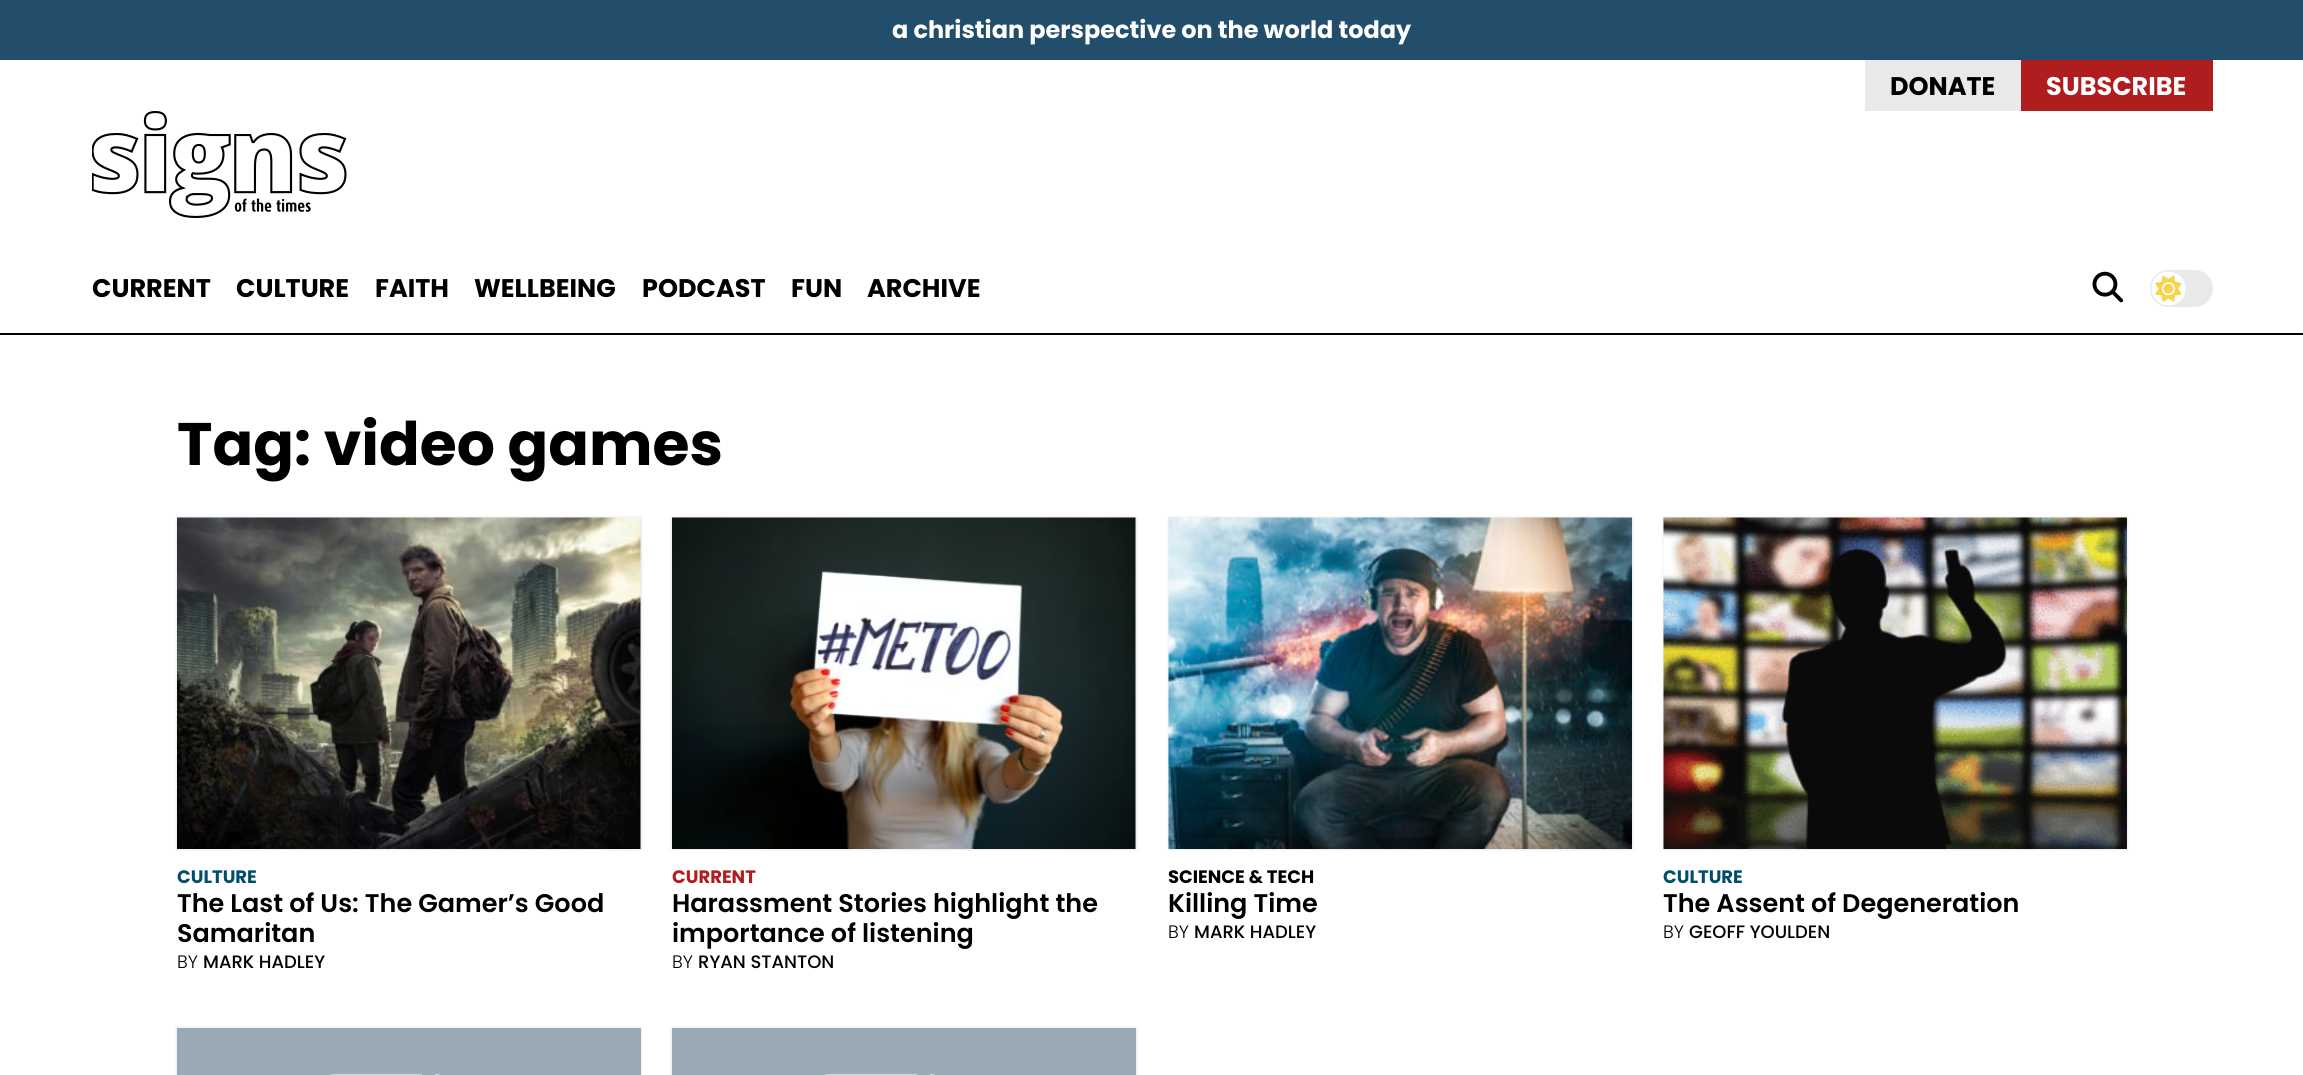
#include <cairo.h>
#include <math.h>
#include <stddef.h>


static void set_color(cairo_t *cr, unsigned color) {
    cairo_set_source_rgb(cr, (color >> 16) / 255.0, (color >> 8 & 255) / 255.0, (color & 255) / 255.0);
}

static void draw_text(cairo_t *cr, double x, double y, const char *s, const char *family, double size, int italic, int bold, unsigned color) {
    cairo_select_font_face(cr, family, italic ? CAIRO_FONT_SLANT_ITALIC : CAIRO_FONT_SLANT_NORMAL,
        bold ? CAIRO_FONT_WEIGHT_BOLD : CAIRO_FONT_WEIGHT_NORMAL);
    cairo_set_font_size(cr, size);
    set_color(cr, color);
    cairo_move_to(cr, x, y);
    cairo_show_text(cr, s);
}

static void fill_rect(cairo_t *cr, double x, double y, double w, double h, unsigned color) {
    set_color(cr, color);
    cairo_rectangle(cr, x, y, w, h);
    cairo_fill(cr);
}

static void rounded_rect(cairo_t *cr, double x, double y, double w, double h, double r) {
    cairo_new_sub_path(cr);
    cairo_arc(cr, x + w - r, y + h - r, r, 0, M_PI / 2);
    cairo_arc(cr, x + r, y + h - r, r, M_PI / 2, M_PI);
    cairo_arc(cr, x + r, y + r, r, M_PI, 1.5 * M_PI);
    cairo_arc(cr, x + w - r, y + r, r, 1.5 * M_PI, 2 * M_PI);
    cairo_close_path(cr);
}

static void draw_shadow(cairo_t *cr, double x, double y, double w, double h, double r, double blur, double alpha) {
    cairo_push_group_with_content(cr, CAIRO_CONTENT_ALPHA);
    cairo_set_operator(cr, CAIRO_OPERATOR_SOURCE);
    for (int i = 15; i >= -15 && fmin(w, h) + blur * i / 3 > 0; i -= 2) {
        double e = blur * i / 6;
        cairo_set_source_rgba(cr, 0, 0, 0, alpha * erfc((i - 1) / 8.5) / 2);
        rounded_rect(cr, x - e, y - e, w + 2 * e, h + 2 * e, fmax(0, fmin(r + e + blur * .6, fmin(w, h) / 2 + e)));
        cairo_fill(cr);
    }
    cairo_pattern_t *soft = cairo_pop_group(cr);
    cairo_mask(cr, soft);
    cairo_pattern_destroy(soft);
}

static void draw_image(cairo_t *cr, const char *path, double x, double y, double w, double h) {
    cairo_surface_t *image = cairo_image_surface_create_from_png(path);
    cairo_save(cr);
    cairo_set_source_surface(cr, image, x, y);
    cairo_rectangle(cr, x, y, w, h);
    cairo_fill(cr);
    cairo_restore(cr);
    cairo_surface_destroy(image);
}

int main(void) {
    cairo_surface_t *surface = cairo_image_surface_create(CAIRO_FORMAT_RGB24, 2303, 1075);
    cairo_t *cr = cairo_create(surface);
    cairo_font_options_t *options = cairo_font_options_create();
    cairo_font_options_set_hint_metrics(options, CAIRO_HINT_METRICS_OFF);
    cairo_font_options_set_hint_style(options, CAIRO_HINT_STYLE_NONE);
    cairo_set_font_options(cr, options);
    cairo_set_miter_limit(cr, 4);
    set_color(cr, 0xFFFFFF);
    cairo_paint(cr);
    fill_rect(cr, 0, 0, 2303, 60, 0x224E6C);
    draw_text(cr, 892, 38, "a christian perspective on the world today", "Poppins", 24, 0, 1, 0xFFFFFF);
    fill_rect(cr, 0, 333, 2303, 2, 0x000000);
    fill_rect(cr, 1865, 60, 156, 51, 0xE9E9E9);
    draw_text(cr, 1890, 95, "DONATE", "Poppins", 25.5, 0, 1, 0x000000);
    fill_rect(cr, 2021, 60, 192, 51, 0xAF1D1F);
    draw_text(cr, 2046, 95, "SUBSCRIBE", "Poppins", 25.5, 0, 1, 0xFFFFFF);
    draw_image(cr, "assets/img1.png", 92, 111, 255, 107);
    draw_text(cr, 92, 297, "CURRENT", "Poppins", 25.5, 0, 1, 0x000000);
    draw_text(cr, 236, 297, "CULTURE", "Poppins", 25.5, 0, 1, 0x000000);
    draw_text(cr, 375, 297, "FAITH", "Poppins", 25.5, 0, 1, 0x000000);
    draw_text(cr, 474, 297, "WELLBEING", "Poppins", 25.5, 0, 1, 0x000000);
    draw_text(cr, 642, 297, "PODCAST", "Poppins", 25.5, 0, 1, 0x000000);
    draw_text(cr, 791, 297, "FUN", "Poppins", 25.5, 0, 1, 0x000000);
    draw_text(cr, 867, 297, "ARCHIVE", "Poppins", 25.5, 0, 1, 0x000000);
    draw_image(cr, "assets/img2.png", 2092, 271, 32, 32);
    draw_image(cr, "assets/img3.png", 2150, 270, 63, 37);
    draw_text(cr, 177, 465, "Tag: video games", "Poppins", 60, 0, 1, 0x000000);
    set_color(cr, 0x000000);
    draw_shadow(cr, 177, 518, 464, 331, 0, 1.5, 0.15);
    draw_image(cr, "assets/img4.png", 177, 517, 464, 332);
    draw_text(cr, 177, 883, "CULTURE", "Poppins", 18, 0, 1, 0x004D6E);
    draw_text(cr, 177, 912, "The Last of Us: The Gamer’s Good", "Poppins SemiBold", 25.5, 0, 0, 0x000000);
    draw_text(cr, 177, 942, "Samaritan", "Poppins SemiBold", 25.5, 0, 0, 0x000000);
    draw_text(cr, 177, 968, "BY", "Poppins Light", 18, 0, 0, 0x000000);
    draw_text(cr, 203, 968, "MARK HADLEY", "Poppins Medium", 18, 0, 0, 0x000000);
    set_color(cr, 0x000000);
    draw_shadow(cr, 672, 518, 464, 331, 0, 1.5, 0.15);
    draw_image(cr, "assets/img5.png", 672, 517, 464, 332);
    draw_text(cr, 672, 883, "CURRENT", "Poppins", 18, 0, 1, 0xAF1D1F);
    draw_text(cr, 672, 912, "Harassment Stories highlight the", "Poppins SemiBold", 25.5, 0, 0, 0x000000);
    draw_text(cr, 672, 942, "importance of listening", "Poppins SemiBold", 25.5, 0, 0, 0x000000);
    draw_text(cr, 672, 968, "BY", "Poppins Light", 18, 0, 0, 0x000000);
    draw_text(cr, 698, 968, "RYAN STANTON", "Poppins Medium", 18, 0, 0, 0x000000);
    set_color(cr, 0x000000);
    draw_shadow(cr, 1169, 518, 463, 331, 0, 1.5, 0.15);
    draw_image(cr, "assets/img6.png", 1168, 517, 464, 332);
    draw_text(cr, 1168, 883, "SCIENCE & TECH", "Poppins", 18, 0, 1, 0x000000);
    draw_text(cr, 1168, 912, "Killing Time", "Poppins SemiBold", 25.5, 0, 0, 0x000000);
    draw_text(cr, 1168, 938, "BY", "Poppins Light", 18, 0, 0, 0x000000);
    draw_text(cr, 1194, 938, "MARK HADLEY", "Poppins Medium", 18, 0, 0, 0x000000);
    set_color(cr, 0x000000);
    draw_shadow(cr, 1664, 518, 463, 331, 0, 1.5, 0.15);
    draw_image(cr, "assets/img7.png", 1663, 517, 464, 332);
    draw_text(cr, 1663, 883, "CULTURE", "Poppins", 18, 0, 1, 0x004D6E);
    draw_text(cr, 1663, 912, "The Assent of Degeneration", "Poppins SemiBold", 25.5, 0, 0, 0x000000);
    draw_text(cr, 1663, 938, "BY", "Poppins Light", 18, 0, 0, 0x000000);
    draw_text(cr, 1689, 938, "GEOFF YOULDEN", "Poppins Medium", 18, 0, 0, 0x000000);
    set_color(cr, 0x000000);
    draw_shadow(cr, 177, 1028, 464, 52, 0, 1.5, 0.15);
    draw_image(cr, "assets/img8.png", 177, 1028, 464, 47);
    draw_shadow(cr, 672, 1028, 464, 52, 0, 1.5, 0.15);
    draw_image(cr, "assets/img8.png", 672, 1028, 464, 47);
    cairo_surface_write_to_png(surface, "output.png");
    cairo_font_options_destroy(options);
    cairo_destroy(cr);
    cairo_surface_destroy(surface);
    return 0;
}
